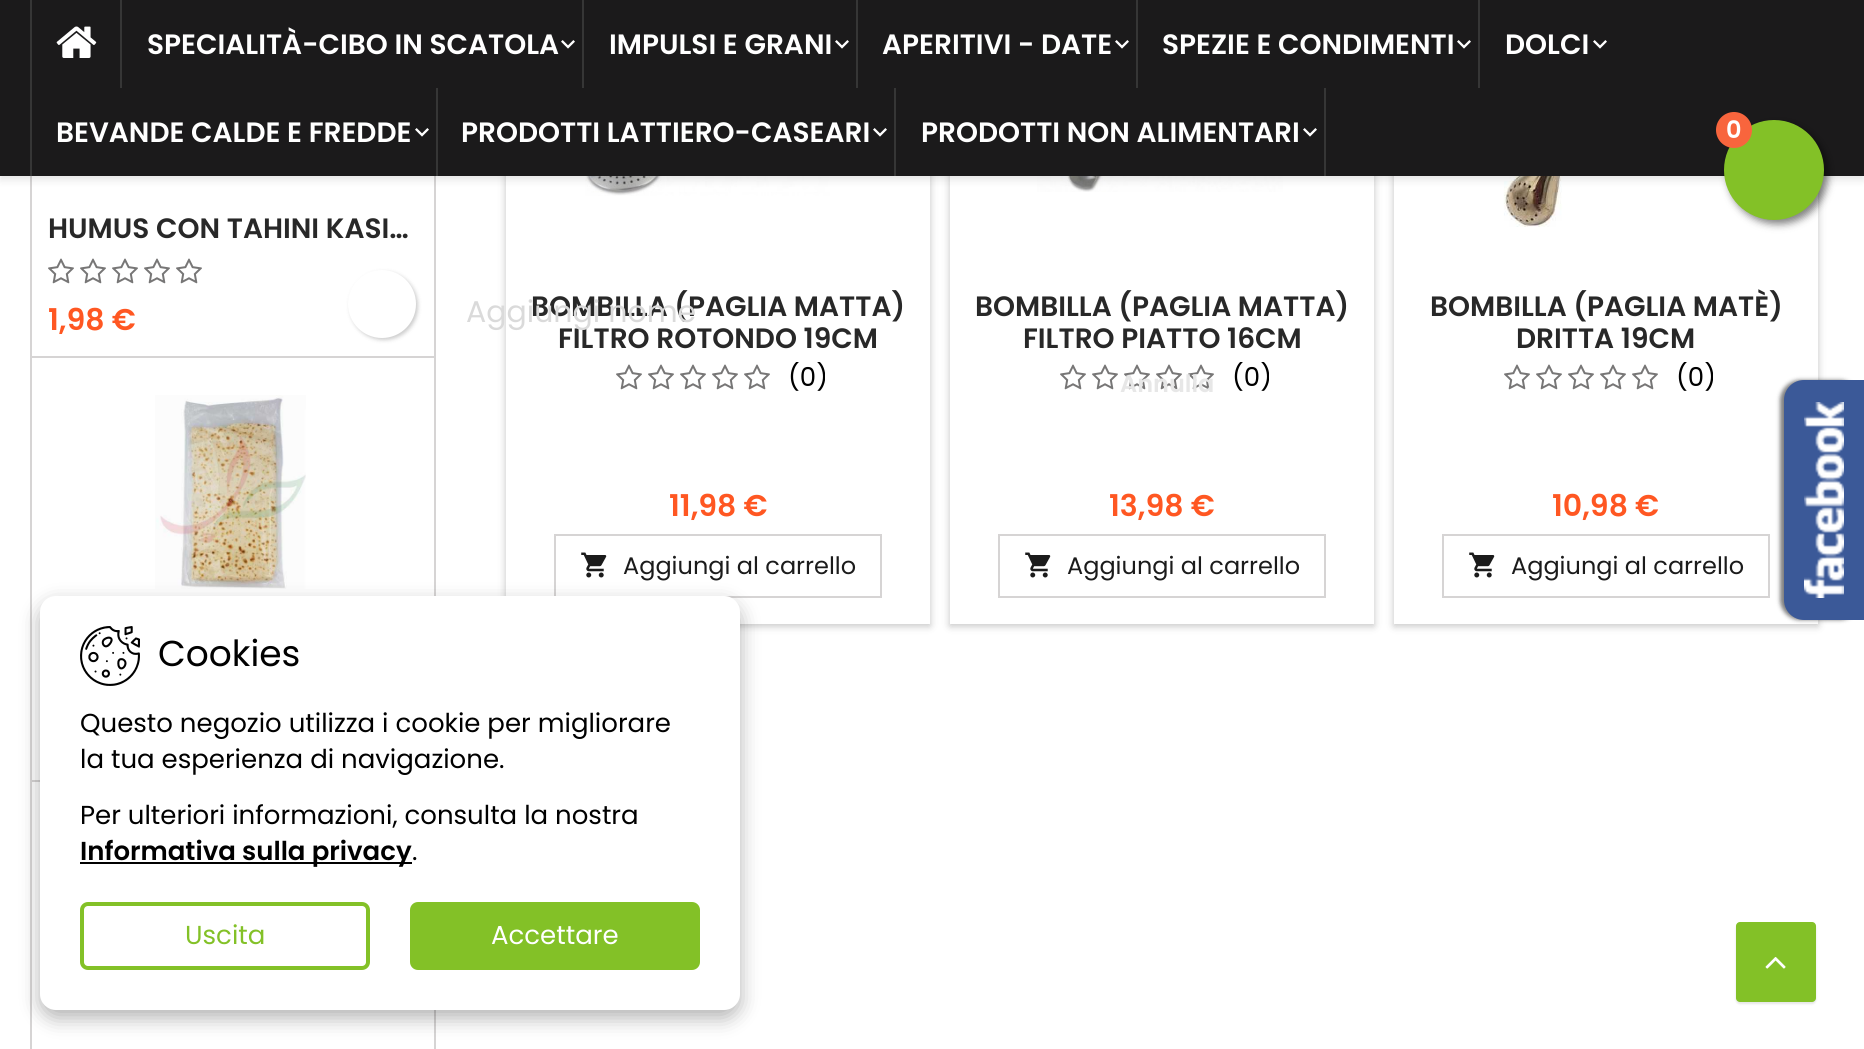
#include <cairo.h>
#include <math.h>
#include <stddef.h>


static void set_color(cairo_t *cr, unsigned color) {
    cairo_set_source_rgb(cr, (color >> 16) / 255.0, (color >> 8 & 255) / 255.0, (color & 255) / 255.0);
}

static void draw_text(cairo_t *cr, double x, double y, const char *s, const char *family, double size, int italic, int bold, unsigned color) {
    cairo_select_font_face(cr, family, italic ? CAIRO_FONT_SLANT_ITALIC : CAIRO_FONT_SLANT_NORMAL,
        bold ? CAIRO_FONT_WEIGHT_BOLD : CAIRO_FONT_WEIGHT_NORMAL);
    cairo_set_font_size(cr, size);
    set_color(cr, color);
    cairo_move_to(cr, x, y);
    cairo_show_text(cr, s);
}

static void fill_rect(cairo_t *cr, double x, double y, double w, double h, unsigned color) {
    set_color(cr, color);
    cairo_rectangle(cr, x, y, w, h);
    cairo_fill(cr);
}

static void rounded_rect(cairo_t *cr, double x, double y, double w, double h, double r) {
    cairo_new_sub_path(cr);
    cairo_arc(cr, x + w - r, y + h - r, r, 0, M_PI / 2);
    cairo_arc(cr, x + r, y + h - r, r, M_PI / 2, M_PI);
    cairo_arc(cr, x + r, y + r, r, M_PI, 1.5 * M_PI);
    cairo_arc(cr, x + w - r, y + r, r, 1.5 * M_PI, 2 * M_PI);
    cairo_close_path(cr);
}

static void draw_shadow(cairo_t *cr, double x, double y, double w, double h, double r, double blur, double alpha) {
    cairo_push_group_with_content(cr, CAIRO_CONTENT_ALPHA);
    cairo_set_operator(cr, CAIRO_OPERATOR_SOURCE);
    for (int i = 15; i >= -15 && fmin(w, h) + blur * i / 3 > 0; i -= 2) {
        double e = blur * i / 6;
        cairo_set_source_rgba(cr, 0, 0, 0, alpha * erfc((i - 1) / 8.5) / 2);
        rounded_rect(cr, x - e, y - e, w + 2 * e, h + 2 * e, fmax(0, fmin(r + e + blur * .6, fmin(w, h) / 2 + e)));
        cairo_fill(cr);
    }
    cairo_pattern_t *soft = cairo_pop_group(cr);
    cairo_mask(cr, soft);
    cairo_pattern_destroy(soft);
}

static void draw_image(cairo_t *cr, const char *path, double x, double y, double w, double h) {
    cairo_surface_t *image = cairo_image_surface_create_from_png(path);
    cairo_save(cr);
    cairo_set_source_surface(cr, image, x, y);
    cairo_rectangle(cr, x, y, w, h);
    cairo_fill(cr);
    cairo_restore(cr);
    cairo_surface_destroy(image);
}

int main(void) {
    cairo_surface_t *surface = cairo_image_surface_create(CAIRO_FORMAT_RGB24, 1864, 1049);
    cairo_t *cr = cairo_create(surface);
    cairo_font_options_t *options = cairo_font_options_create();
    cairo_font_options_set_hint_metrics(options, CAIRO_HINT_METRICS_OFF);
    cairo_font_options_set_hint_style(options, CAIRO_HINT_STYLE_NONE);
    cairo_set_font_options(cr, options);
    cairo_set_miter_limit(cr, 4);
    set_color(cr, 0xFFFFFF);
    cairo_paint(cr);
    fill_rect(cr, 434, 176, 2, 420, 0xD6D4D4);
    fill_rect(cr, 30, 356, 406, 2, 0xD6D4D4);
    fill_rect(cr, 30, 176, 2, 182, 0xD6D4D4);
    cairo_save(cr);
    cairo_set_fill_rule(cr, CAIRO_FILL_RULE_EVEN_ODD);
    cairo_new_path(cr);
    cairo_move_to(cr, 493, 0);
    cairo_line_to(cr, 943, 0);
    cairo_line_to(cr, 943, 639);
    cairo_line_to(cr, 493, 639);
    cairo_close_path(cr);
    cairo_move_to(cr, 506, -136);
    cairo_line_to(cr, 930, -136);
    cairo_line_to(cr, 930, 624);
    cairo_line_to(cr, 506, 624);
    cairo_close_path(cr);
    cairo_clip(cr);
    set_color(cr, 0x000000);
    draw_shadow(cr, 506, -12, 424, 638, 0, 4, 0.24);
    cairo_restore(cr);
    draw_image(cr, "assets/img5.png", 585, 176, 254, 20);
    cairo_save(cr);
    cairo_set_fill_rule(cr, CAIRO_FILL_RULE_EVEN_ODD);
    cairo_new_path(cr);
    cairo_move_to(cr, 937, 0);
    cairo_line_to(cr, 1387, 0);
    cairo_line_to(cr, 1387, 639);
    cairo_line_to(cr, 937, 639);
    cairo_close_path(cr);
    cairo_move_to(cr, 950, -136);
    cairo_line_to(cr, 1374, -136);
    cairo_line_to(cr, 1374, 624);
    cairo_line_to(cr, 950, 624);
    cairo_close_path(cr);
    cairo_clip(cr);
    set_color(cr, 0x000000);
    draw_shadow(cr, 950, -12, 424, 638, 0, 4, 0.24);
    cairo_restore(cr);
    draw_image(cr, "assets/img7.png", 1037, 176, 246, 16);
    cairo_save(cr);
    cairo_set_fill_rule(cr, CAIRO_FILL_RULE_EVEN_ODD);
    cairo_new_path(cr);
    cairo_move_to(cr, 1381, 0);
    cairo_line_to(cr, 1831, 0);
    cairo_line_to(cr, 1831, 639);
    cairo_line_to(cr, 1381, 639);
    cairo_close_path(cr);
    cairo_move_to(cr, 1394, -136);
    cairo_line_to(cr, 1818, -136);
    cairo_line_to(cr, 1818, 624);
    cairo_line_to(cr, 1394, 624);
    cairo_close_path(cr);
    cairo_clip(cr);
    set_color(cr, 0x000000);
    draw_shadow(cr, 1394, -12, 424, 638, 0, 4, 0.24);
    cairo_restore(cr);
    draw_image(cr, "assets/img8.png", 1481, 176, 245, 51);
    set_color(cr, 0x000000);
    draw_shadow(cr, 0, 4, 1864, 176, 0, 4, 0.1);
    fill_rect(cr, 0, 0, 1864, 176, 0x1B1A1B);
    fill_rect(cr, 30, 0, 2, 176, 0x363636);
    draw_image(cr, "assets/img1.png", 56, 26, 41, 32);
    fill_rect(cr, 120, 0, 2, 88, 0x363636);
    draw_text(cr, 147, 54, "SPECIALITÀ-CIBO IN SCATOLA", "Poppins SemiBold", 28, 0, 0, 0xFFFFFF);
    draw_image(cr, "assets/img2.png", 561, 40, 14, 9);
    fill_rect(cr, 582, 0, 2, 88, 0x363636);
    draw_text(cr, 609, 54, "IMPULSI E GRANI", "Poppins SemiBold", 28, 0, 0, 0xFFFFFF);
    draw_image(cr, "assets/img2.png", 835, 40, 14, 9);
    fill_rect(cr, 856, 0, 2, 88, 0x363636);
    draw_text(cr, 882, 54, "APERITIVI - DATE", "Poppins SemiBold", 28, 0, 0, 0xFFFFFF);
    draw_image(cr, "assets/img2.png", 1115, 40, 14, 9);
    fill_rect(cr, 1136, 0, 2, 88, 0x363636);
    draw_text(cr, 1162, 54, "SPEZIE E CONDIMENTI", "Poppins SemiBold", 28, 0, 0, 0xFFFFFF);
    draw_image(cr, "assets/img2.png", 1457, 40, 14, 9);
    fill_rect(cr, 1478, 0, 2, 88, 0x363636);
    draw_text(cr, 1505, 54, "DOLCI", "Poppins SemiBold", 28, 0, 0, 0xFFFFFF);
    draw_image(cr, "assets/img2.png", 1593, 40, 14, 9);
    draw_text(cr, 56, 142, "BEVANDE CALDE E FREDDE", "Poppins SemiBold", 28, 0, 0, 0xFFFFFF);
    draw_image(cr, "assets/img2.png", 415, 128, 14, 9);
    fill_rect(cr, 436, 88, 2, 88, 0x363636);
    draw_text(cr, 461, 142, "PRODOTTI LATTIERO-CASEARI", "Poppins SemiBold", 28, 0, 0, 0xFFFFFF);
    draw_image(cr, "assets/img2.png", 873, 128, 14, 9);
    fill_rect(cr, 1324, 88, 2, 88, 0x363636);
    fill_rect(cr, 894, 88, 2, 88, 0x363636);
    draw_text(cr, 921, 142, "PRODOTTI NON ALIMENTARI", "Poppins SemiBold", 28, 0, 0, 0xFFFFFF);
    draw_image(cr, "assets/img2.png", 1303, 128, 14, 9);
    set_color(cr, 0x000000);
    draw_shadow(cr, 1728, 124, 100, 100, 50, 4, 0.5);
    set_color(cr, 0x83C127);
    cairo_arc(cr, 1774, 170, 50, 0, 2 * M_PI);
    cairo_fill(cr);
    set_color(cr, 0xF8653D);
    cairo_arc(cr, 1734, 130, 18, 0, 2 * M_PI);
    cairo_fill(cr);
    draw_text(cr, 1726, 138, "0", "Poppins SemiBold", 24, 0, 0, 0xFFFFFF);
    draw_text(cr, 48, 238, "HUMUS CON TAHINI KASI…", "Poppins SemiBold", 28, 0, 0, 0x282828);
    draw_image(cr, "assets/img3.png", 48, 258, 26, 26);
    draw_image(cr, "assets/img3.png", 80, 258, 26, 26);
    draw_image(cr, "assets/img3.png", 112, 258, 26, 26);
    draw_image(cr, "assets/img3.png", 144, 258, 26, 26);
    draw_image(cr, "assets/img3.png", 176, 258, 26, 26);
    draw_text(cr, 48, 330, "1,98 €", "Poppins SemiBold", 30, 0, 0, 0xFF5722);
    set_color(cr, 0x000000);
    draw_shadow(cr, 350, 272, 68, 68, 34, 2, 0.2);
    set_color(cr, 0xFFFFFF);
    cairo_arc(cr, 382, 304, 34, 0, 2 * M_PI);
    cairo_fill(cr);
    fill_rect(cr, 30, 780, 10, 2, 0xD6D4D4);
    fill_rect(cr, 30, 358, 2, 691, 0xD6D4D4);
    draw_image(cr, "assets/img4.png", 155, 395, 151, 194);
    fill_rect(cr, 434, 1010, 2, 39, 0xD6D4D4);
    draw_text(cr, 531, 316, "BOMBILLA (PAGLIA MATTA)", "Poppins SemiBold", 28, 0, 0, 0x282828);
    draw_text(cr, 558, 348, "FILTRO ROTONDO 19CM", "Poppins SemiBold", 28, 0, 0, 0x282828);
    draw_image(cr, "assets/img3.png", 616, 364, 26, 26);
    draw_image(cr, "assets/img3.png", 648, 364, 26, 26);
    draw_image(cr, "assets/img3.png", 680, 364, 26, 26);
    draw_image(cr, "assets/img3.png", 712, 364, 26, 26);
    draw_image(cr, "assets/img3.png", 744, 364, 26, 26);
    cairo_save(cr);
    cairo_rectangle(cr, 784, 362, 44, 32);
    cairo_clip(cr);
    draw_text(cr, 788, 386, "(0)", "Poppins", 26, 0, 0, 0x000000);
    cairo_restore(cr);
    draw_text(cr, 669, 516, "11,98 €", "Poppins SemiBold", 30, 0, 0, 0xFF5722);
    cairo_rectangle(cr, 555, 535, 326, 62);
    set_color(cr, 0xD6D4D4);
    cairo_stroke(cr);
    draw_image(cr, "assets/img6.png", 581, 552, 26, 26);
    draw_text(cr, 623, 574, "Aggiungi al carrello", "Poppins", 24, 0, 0, 0x1B1B1B);
    draw_text(cr, 975, 316, "BOMBILLA (PAGLIA MATTA)", "Poppins SemiBold", 28, 0, 0, 0x282828);
    draw_text(cr, 1023, 348, "FILTRO PIATTO 16CM", "Poppins SemiBold", 28, 0, 0, 0x282828);
    draw_image(cr, "assets/img3.png", 1060, 364, 26, 26);
    draw_image(cr, "assets/img3.png", 1092, 364, 26, 26);
    draw_image(cr, "assets/img3.png", 1124, 364, 26, 26);
    draw_image(cr, "assets/img3.png", 1156, 364, 26, 26);
    draw_image(cr, "assets/img3.png", 1188, 364, 26, 26);
    cairo_save(cr);
    cairo_rectangle(cr, 1228, 362, 44, 32);
    cairo_clip(cr);
    draw_text(cr, 1232, 386, "(0)", "Poppins", 26, 0, 0, 0x000000);
    cairo_restore(cr);
    draw_text(cr, 1109, 516, "13,98 €", "Poppins SemiBold", 30, 0, 0, 0xFF5722);
    cairo_rectangle(cr, 999, 535, 326, 62);
    set_color(cr, 0xD6D4D4);
    cairo_stroke(cr);
    draw_image(cr, "assets/img6.png", 1025, 552, 26, 26);
    draw_text(cr, 1067, 574, "Aggiungi al carrello", "Poppins", 24, 0, 0, 0x1B1B1B);
    draw_text(cr, 1430, 316, "BOMBILLA (PAGLIA MATÈ)", "Poppins SemiBold", 28, 0, 0, 0x282828);
    draw_text(cr, 1516, 348, "DRITTA 19CM", "Poppins SemiBold", 28, 0, 0, 0x282828);
    draw_image(cr, "assets/img3.png", 1504, 364, 26, 26);
    draw_image(cr, "assets/img3.png", 1536, 364, 26, 26);
    draw_image(cr, "assets/img3.png", 1568, 364, 26, 26);
    draw_image(cr, "assets/img3.png", 1600, 364, 26, 26);
    draw_image(cr, "assets/img3.png", 1632, 364, 26, 26);
    cairo_save(cr);
    cairo_rectangle(cr, 1672, 362, 44, 32);
    cairo_clip(cr);
    draw_text(cr, 1676, 386, "(0)", "Poppins", 26, 0, 0, 0x000000);
    cairo_restore(cr);
    draw_text(cr, 1552, 516, "10,98 €", "Poppins SemiBold", 30, 0, 0, 0xFF5722);
    cairo_rectangle(cr, 1443, 535, 326, 62);
    set_color(cr, 0xD6D4D4);
    cairo_stroke(cr);
    draw_image(cr, "assets/img6.png", 1469, 552, 26, 26);
    draw_text(cr, 1511, 574, "Aggiungi al carrello", "Poppins", 24, 0, 0, 0x1B1B1B);
    set_color(cr, 0x000000);
    draw_shadow(cr, 1780, 380, 80, 240, 20, 2, 0.5);
    set_color(cr, 0x3B5998);
    cairo_new_path(cr);
    cairo_move_to(cr, 1804, 380);
    cairo_line_to(cr, 1864, 380);
    cairo_line_to(cr, 1864, 620);
    cairo_line_to(cr, 1804, 620);
    cairo_curve_to(cr, 1793, 620, 1784, 611, 1784, 600);
    cairo_line_to(cr, 1784, 400);
    cairo_curve_to(cr, 1784, 389, 1793, 380, 1804, 380);
    cairo_close_path(cr);
    cairo_fill(cr);
    draw_image(cr, "assets/img9.png", 1804, 402, 40, 196);
    draw_text(cr, 466, 322, "Aggiungi nome", "Poppins", 30, 0, 0, 0xDADADA);
    draw_text(cr, 1120, 392, "Annulla", "Poppins SemiBold", 24, 0, 0, 0xE7E7E7);
    set_color(cr, 0x000000);
    draw_shadow(cr, 40, 604, 700, 414, 16, 10, 0.3);
    set_color(cr, 0xFFFFFF);
    rounded_rect(cr, 40, 596, 700, 414, 16);
    cairo_fill(cr);
    draw_image(cr, "assets/img10.png", 80, 626, 60, 60);
    draw_text(cr, 158, 666, "Cookies", "Poppins", 36, 0, 0, 0x000000);
    draw_text(cr, 80, 732, "Questo negozio utilizza i cookie per migliorare", "Poppins", 26, 0, 0, 0x000000);
    draw_text(cr, 80, 768, "la tua esperienza di navigazione.", "Poppins", 26, 0, 0, 0x000000);
    draw_text(cr, 80, 824, "Per ulteriori informazioni, consulta la nostra", "Poppins", 26, 0, 0, 0x000000);
    fill_rect(cr, 80, 862, 332, 2, 0x000000);
    draw_text(cr, 80, 860, "Informativa sulla privacy", "Poppins SemiBold", 26, 0, 0, 0x000000);
    draw_text(cr, 412, 860, ".", "Poppins", 26, 0, 0, 0x000000);
    rounded_rect(cr, 82, 904, 286, 64, 6);
    set_color(cr, 0x83C127);
    cairo_set_line_width(cr, 4);
    cairo_stroke(cr);
    draw_text(cr, 185, 944, "Uscita", "Poppins", 26, 0, 0, 0x83C127);
    rounded_rect(cr, 412, 904, 286, 64, 6);
    cairo_fill_preserve(cr);
    cairo_stroke(cr);
    draw_text(cr, 491, 944, "Accettare", "Poppins", 26, 0, 0, 0xFFFFFF);
    set_color(cr, 0x000000);
    draw_shadow(cr, 1736, 924, 80, 80, 4, 1, 0.1);
    set_color(cr, 0x83C127);
    rounded_rect(cr, 1736, 922, 80, 80, 4);
    cairo_fill(cr);
    draw_image(cr, "assets/img11.png", 1765, 957, 21, 12);
    cairo_surface_write_to_png(surface, "output.png");
    cairo_font_options_destroy(options);
    cairo_destroy(cr);
    cairo_surface_destroy(surface);
    return 0;
}
